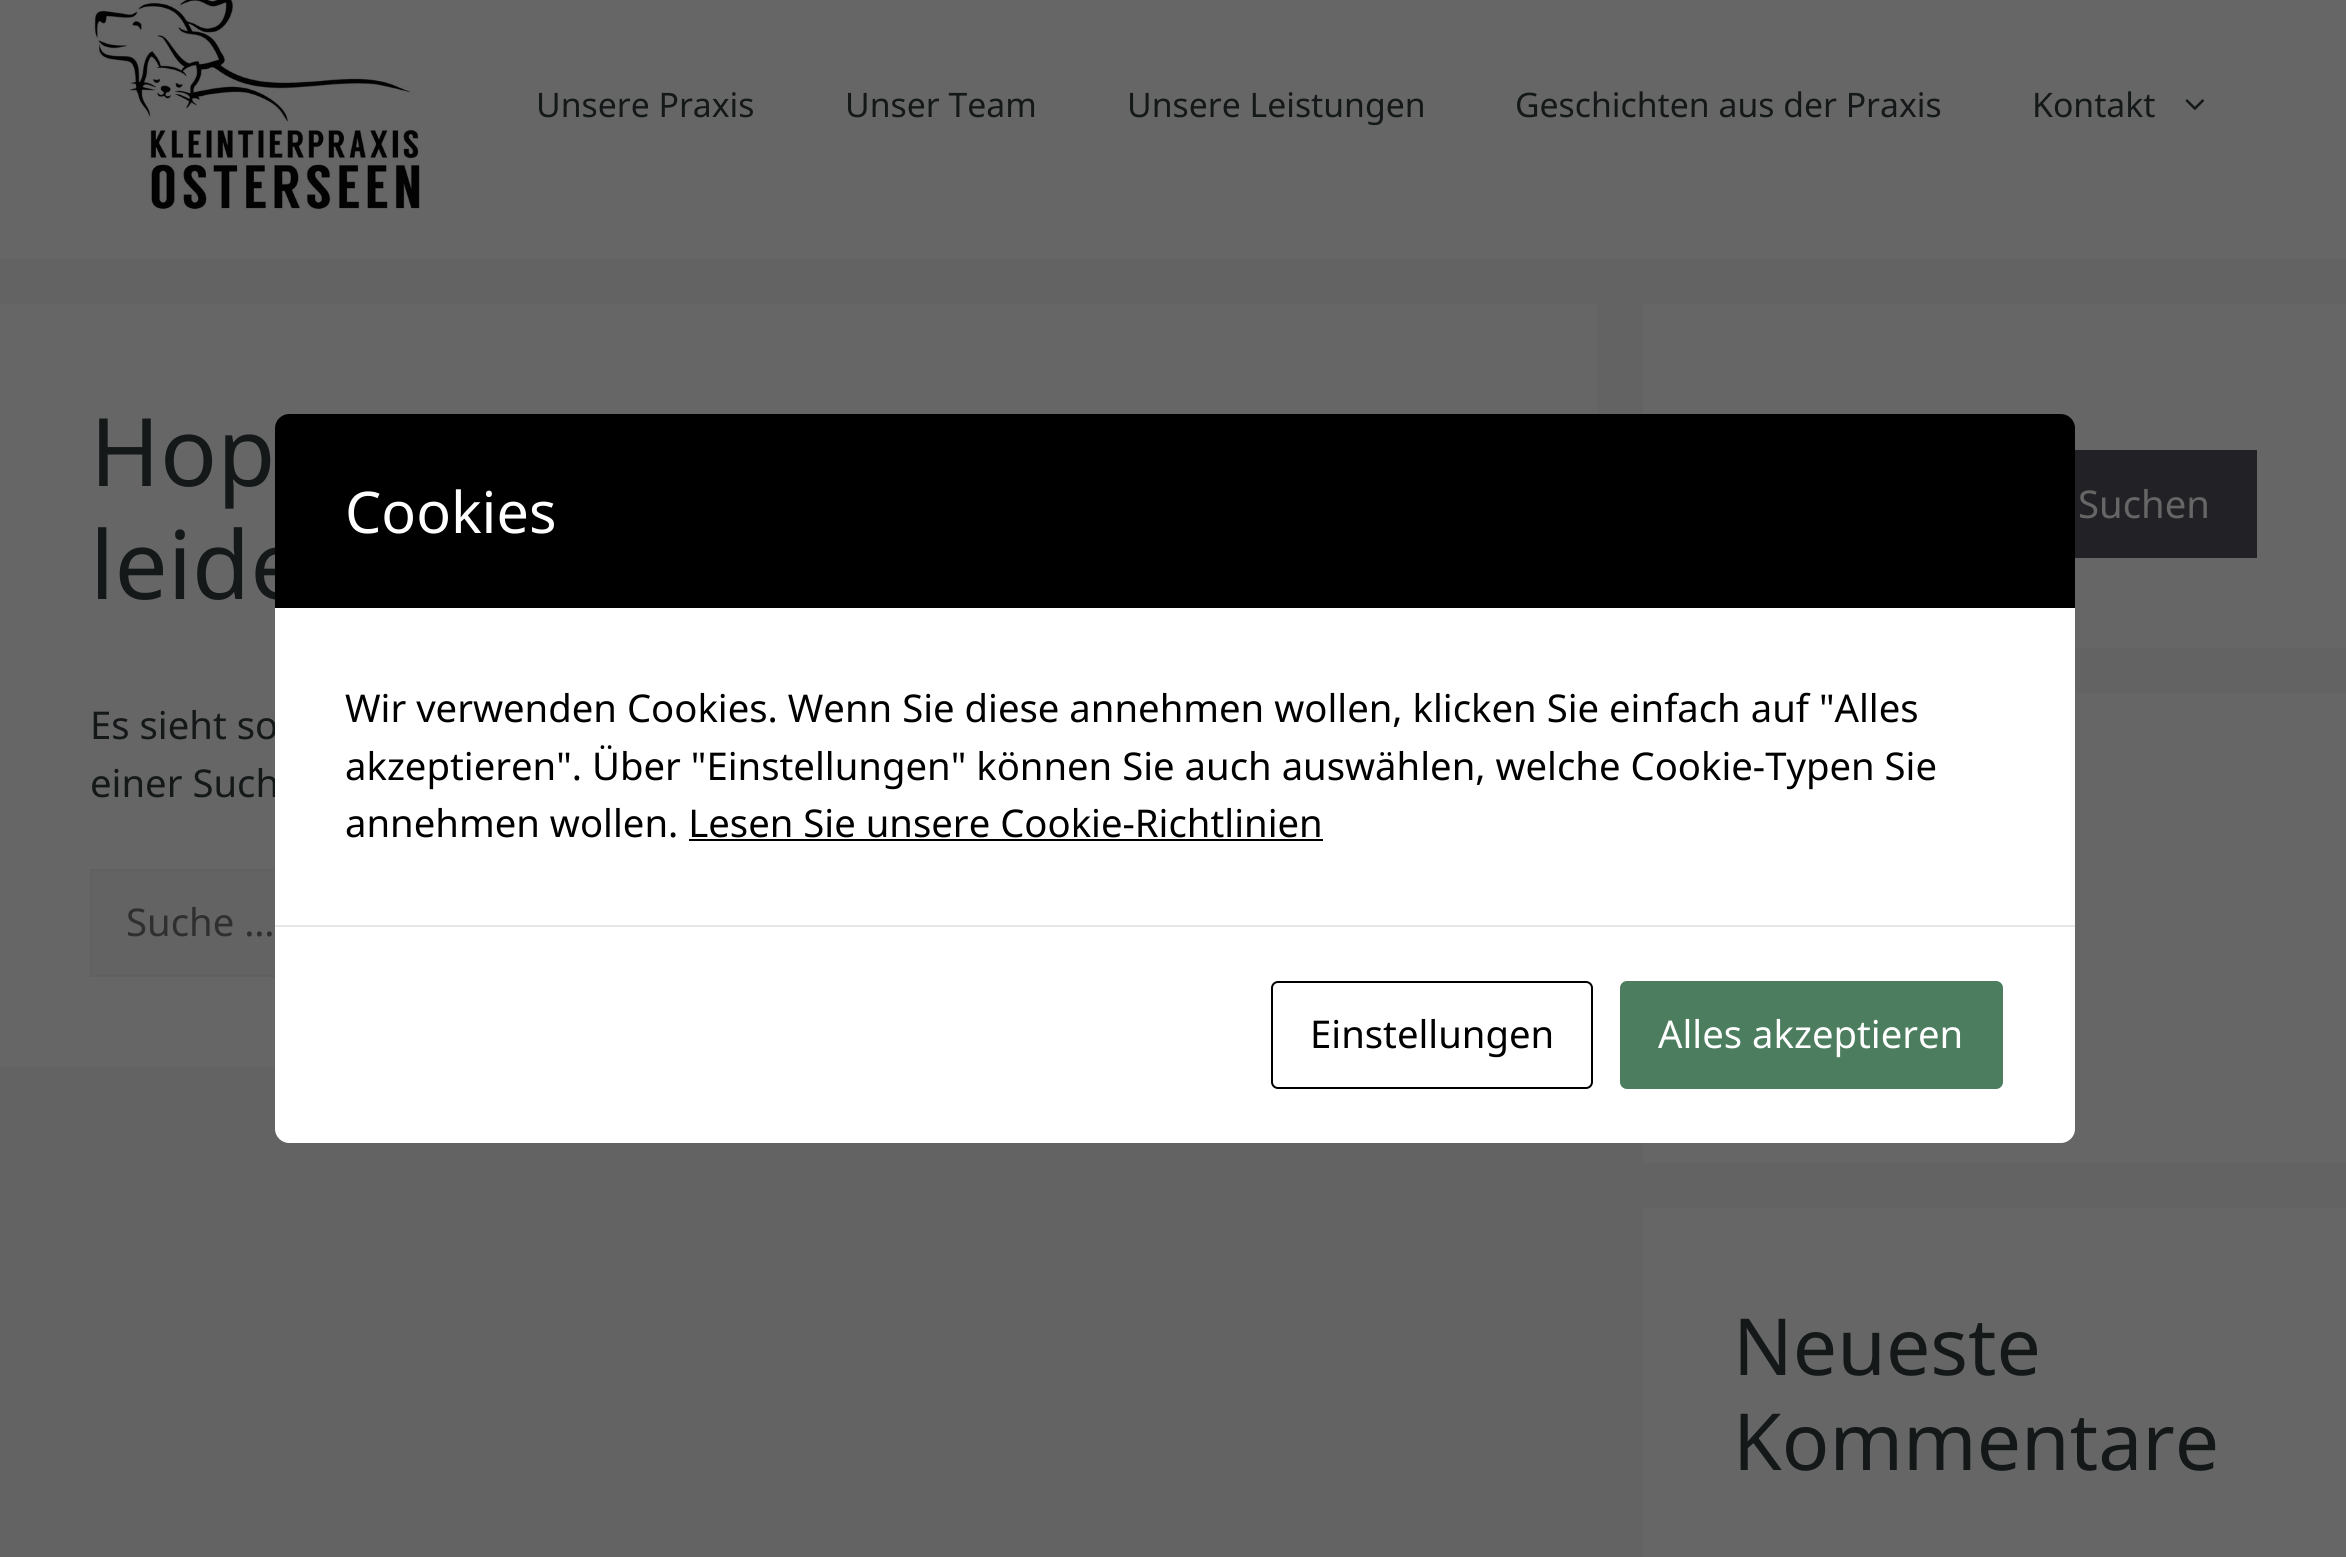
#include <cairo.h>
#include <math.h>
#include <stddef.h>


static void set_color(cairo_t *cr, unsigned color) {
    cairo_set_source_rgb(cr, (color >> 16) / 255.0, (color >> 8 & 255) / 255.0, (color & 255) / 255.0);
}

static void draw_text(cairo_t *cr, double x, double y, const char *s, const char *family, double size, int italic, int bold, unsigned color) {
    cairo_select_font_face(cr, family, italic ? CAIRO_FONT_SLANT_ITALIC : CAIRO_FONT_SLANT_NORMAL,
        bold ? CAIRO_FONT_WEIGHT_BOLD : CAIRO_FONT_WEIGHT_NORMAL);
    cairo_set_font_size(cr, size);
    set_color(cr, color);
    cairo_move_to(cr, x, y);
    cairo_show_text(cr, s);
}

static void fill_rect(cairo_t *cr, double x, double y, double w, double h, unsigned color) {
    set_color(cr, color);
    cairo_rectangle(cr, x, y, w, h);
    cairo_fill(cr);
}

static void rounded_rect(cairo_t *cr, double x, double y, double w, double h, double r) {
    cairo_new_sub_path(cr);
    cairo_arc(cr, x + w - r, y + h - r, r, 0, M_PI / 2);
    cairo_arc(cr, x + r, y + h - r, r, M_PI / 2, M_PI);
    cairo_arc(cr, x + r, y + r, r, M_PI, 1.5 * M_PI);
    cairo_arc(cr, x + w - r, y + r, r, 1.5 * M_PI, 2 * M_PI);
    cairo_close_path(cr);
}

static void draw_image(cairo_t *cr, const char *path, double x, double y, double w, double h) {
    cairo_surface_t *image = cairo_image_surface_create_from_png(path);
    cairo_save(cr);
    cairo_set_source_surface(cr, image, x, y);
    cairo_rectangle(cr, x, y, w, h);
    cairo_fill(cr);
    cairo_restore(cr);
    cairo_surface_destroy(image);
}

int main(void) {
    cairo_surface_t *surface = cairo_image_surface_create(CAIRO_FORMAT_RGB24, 2346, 1557);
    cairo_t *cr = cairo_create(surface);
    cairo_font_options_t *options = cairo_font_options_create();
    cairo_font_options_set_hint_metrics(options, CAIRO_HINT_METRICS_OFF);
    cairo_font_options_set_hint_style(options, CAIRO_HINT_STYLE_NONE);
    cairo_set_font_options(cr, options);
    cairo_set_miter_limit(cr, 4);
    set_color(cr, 0x636364);
    cairo_paint(cr);
    fill_rect(cr, 0, 0, 2346, 259, 0x666666);
    draw_image(cr, "assets/img1.png", 92, 0, 328, 210);
    draw_text(cr, 536, 117, "Unsere Praxis", "Noto Sans", 33.75, 0, 0, 0x141818);
    draw_text(cr, 845, 117, "Unser Team", "Noto Sans", 33.75, 0, 0, 0x141818);
    draw_text(cr, 1127, 117, "Unsere Leistungen", "Noto Sans", 33.75, 0, 0, 0x141818);
    draw_text(cr, 1515, 117, "Geschichten aus der Praxis", "Noto Sans", 33.75, 0, 0, 0x141818);
    draw_text(cr, 2032, 117, "Kontakt", "Noto Sans", 33.75, 0, 0, 0x141818);
    draw_image(cr, "assets/img2.png", 2185, 99, 20, 11);
    fill_rect(cr, 0, 304, 1598, 763, 0x666666);
    draw_text(cr, 90, 486, "Hop", "Noto Sans", 94.5, 0, 0, 0x141818);
    draw_text(cr, 90, 599, "leide", "Noto Sans", 94.5, 0, 0, 0x141818);
    draw_text(cr, 90, 739, "Es sieht so", "Noto Sans", 38.25, 0, 0, 0x141818);
    draw_text(cr, 90, 797, "einer Such", "Noto Sans", 38.25, 0, 0, 0x141818);
    fill_rect(cr, 92, 871, 183, 104, 0x636364);
    cairo_rectangle(cr, 91, 870, 628, 106);
    set_color(cr, 0x606060);
    cairo_stroke(cr);
    draw_text(cr, 126, 936, "Suche …", "Noto Sans", 38.25, 0, 0, 0x2F2F2F);
    fill_rect(cr, 1643, 304, 703, 344, 0x666666);
    fill_rect(cr, 2075, 450, 182, 108, 0x222226);
    draw_text(cr, 2078, 518, "Suchen", "Noto Sans", 38.25, 0, 0, 0x666666);
    fill_rect(cr, 1643, 693, 703, 470, 0x666666);
    fill_rect(cr, 1643, 1208, 703, 349, 0x666666);
    draw_text(cr, 1733, 1375, "Neueste", "Noto Sans", 78.75, 0, 0, 0x141818);
    draw_text(cr, 1733, 1470, "Kommentare", "Noto Sans", 78.75, 0, 0, 0x141818);
    set_color(cr, 0x000000);
    cairo_new_path(cr);
    cairo_move_to(cr, 289, 414);
    cairo_line_to(cr, 2061, 414);
    cairo_curve_to(cr, 2068.5, 414, 2075, 420.5, 2075, 428);
    cairo_line_to(cr, 2075, 608);
    cairo_line_to(cr, 275, 608);
    cairo_line_to(cr, 275, 428);
    cairo_curve_to(cr, 275, 420.5, 281.5, 414, 289, 414);
    cairo_close_path(cr);
    cairo_fill(cr);
    draw_text(cr, 345, 533, "Cookies", "Noto Sans", 57.5, 0, 0, 0xFFFFFF);
    fill_rect(cr, 275, 608, 1800, 317, 0xFFFFFF);
    draw_text(cr, 345, 722, "Wir verwenden Cookies. Wenn Sie diese annehmen wollen, klicken Sie einfach auf \"Alles", "Noto Sans", 38.25, 0, 0, 0x000000);
    draw_text(cr, 345, 780, "akzeptieren\". Über \"Einstellungen\" können Sie auch auswählen, welche Cookie-Typen Sie", "Noto Sans", 38.25, 0, 0, 0x000000);
    draw_text(cr, 345, 837, "annehmen wollen. Lesen Sie unsere Cookie-Richtlinien", "Noto Sans", 38.25, 0, 0, 0x000000);
    fill_rect(cr, 689, 839, 634, 2, 0x000000);
    set_color(cr, 0xFFFFFF);
    cairo_new_path(cr);
    cairo_move_to(cr, 275, 925);
    cairo_line_to(cr, 2075, 925);
    cairo_line_to(cr, 2075, 1129);
    cairo_curve_to(cr, 2075, 1136.5, 2068.5, 1143, 2061, 1143);
    cairo_line_to(cr, 289, 1143);
    cairo_curve_to(cr, 281.5, 1143, 275, 1136.5, 275, 1129);
    cairo_close_path(cr);
    cairo_fill(cr);
    fill_rect(cr, 275, 925, 1800, 2, 0xE6E6E6);
    rounded_rect(cr, 1272, 982, 320, 106, 6);
    set_color(cr, 0x000000);
    cairo_stroke(cr);
    draw_text(cr, 1310, 1048, "Einstellungen", "Noto Sans", 38.25, 0, 0, 0x000000);
    set_color(cr, 0x4B7D5E);
    rounded_rect(cr, 1621, 982, 381, 106, 6);
    cairo_fill_preserve(cr);
    cairo_stroke(cr);
    draw_text(cr, 1658, 1048, "Alles akzeptieren", "Noto Sans", 38.25, 0, 0, 0xFFFFFF);
    cairo_surface_write_to_png(surface, "output.png");
    cairo_font_options_destroy(options);
    cairo_destroy(cr);
    cairo_surface_destroy(surface);
    return 0;
}
